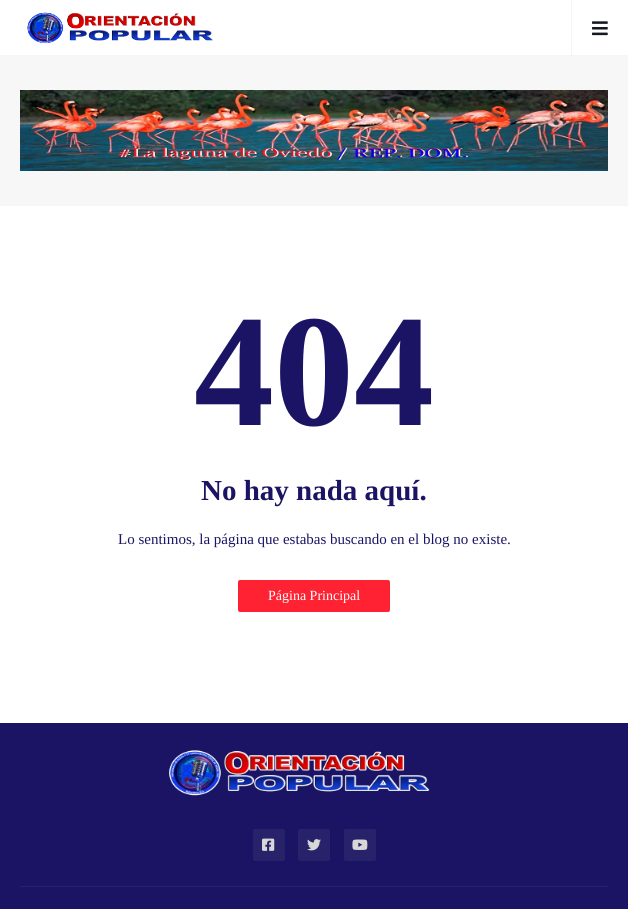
#include <cairo.h>
#include <math.h>
#include <stddef.h>


static void set_color(cairo_t *cr, unsigned color) {
    cairo_set_source_rgb(cr, (color >> 16) / 255.0, (color >> 8 & 255) / 255.0, (color & 255) / 255.0);
}

static void draw_text(cairo_t *cr, double x, double y, const char *s, const char *family, double size, int italic, int bold, unsigned color) {
    cairo_select_font_face(cr, family, italic ? CAIRO_FONT_SLANT_ITALIC : CAIRO_FONT_SLANT_NORMAL,
        bold ? CAIRO_FONT_WEIGHT_BOLD : CAIRO_FONT_WEIGHT_NORMAL);
    cairo_set_font_size(cr, size);
    set_color(cr, color);
    cairo_move_to(cr, x, y);
    cairo_show_text(cr, s);
}

static void fill_rect(cairo_t *cr, double x, double y, double w, double h, unsigned color) {
    set_color(cr, color);
    cairo_rectangle(cr, x, y, w, h);
    cairo_fill(cr);
}

static void rounded_rect(cairo_t *cr, double x, double y, double w, double h, double r) {
    cairo_new_sub_path(cr);
    cairo_arc(cr, x + w - r, y + h - r, r, 0, M_PI / 2);
    cairo_arc(cr, x + r, y + h - r, r, M_PI / 2, M_PI);
    cairo_arc(cr, x + r, y + r, r, M_PI, 1.5 * M_PI);
    cairo_arc(cr, x + w - r, y + r, r, 1.5 * M_PI, 2 * M_PI);
    cairo_close_path(cr);
}

static void draw_image(cairo_t *cr, const char *path, double x, double y, double w, double h) {
    cairo_surface_t *image = cairo_image_surface_create_from_png(path);
    cairo_save(cr);
    cairo_set_source_surface(cr, image, x, y);
    cairo_rectangle(cr, x, y, w, h);
    cairo_fill(cr);
    cairo_restore(cr);
    cairo_surface_destroy(image);
}

int main(void) {
    cairo_surface_t *surface = cairo_image_surface_create(CAIRO_FORMAT_RGB24, 628, 909);
    cairo_t *cr = cairo_create(surface);
    cairo_font_options_t *options = cairo_font_options_create();
    cairo_font_options_set_hint_metrics(options, CAIRO_HINT_METRICS_OFF);
    cairo_font_options_set_hint_style(options, CAIRO_HINT_STYLE_NONE);
    cairo_set_font_options(cr, options);
    cairo_set_miter_limit(cr, 4);
    set_color(cr, 0xFFFFFF);
    cairo_paint(cr);
    fill_rect(cr, 0, 55, 628, 1, 0xF5F5F5);
    draw_image(cr, "assets/img1.png", 27, 12, 186, 32);
    cairo_set_source_rgba(cr, 0.608, 0.608, 0.608, 0.1);
    cairo_rectangle(cr, 571, 0, 1, 56);
    cairo_fill(cr);
    draw_image(cr, "assets/img2.png", 592, 21, 16, 15);
    fill_rect(cr, 0, 205, 628, 1, 0xF5F5F5);
    fill_rect(cr, 0, 56, 628, 149, 0xF7F7F7);
    draw_image(cr, "assets/img3.png", 20, 90, 588, 81);
    draw_text(cr, 194, 425, "404", "Liberation Serif", 160, 0, 1, 0x1B1464);
    draw_text(cr, 201, 500, "No hay nada aquí.", "Liberation Serif", 29, 0, 1, 0x1B1464);
    draw_text(cr, 118, 544, "Lo sentimos, la página que estabas buscando en el blog no existe.", "Liberation Serif", 15, 0, 0, 0x1B1464);
    set_color(cr, 0xFF2232);
    rounded_rect(cr, 238, 580, 152, 32, 2);
    cairo_fill(cr);
    draw_text(cr, 268, 600, "Página Principal", "Liberation Serif", 14, 0, 0, 0xFFFFFF);
    fill_rect(cr, 0, 723, 628, 186, 0x1B1464);
    fill_rect(cr, 20, 886, 588, 1, 0x28226A);
    draw_image(cr, "assets/img4.png", 169, 750, 261, 46);
    rounded_rect(cr, 253, 829, 32, 32, 2);
    cairo_fill(cr);
    draw_image(cr, "assets/img5.png", 262, 838, 13, 13);
    rounded_rect(cr, 298, 829, 32, 32, 2);
    cairo_fill(cr);
    draw_image(cr, "assets/img6.png", 307, 839, 14, 12);
    rounded_rect(cr, 344, 829, 32, 32, 2);
    cairo_fill(cr);
    draw_image(cr, "assets/img7.png", 352, 839, 16, 11);
    cairo_surface_write_to_png(surface, "output.png");
    cairo_font_options_destroy(options);
    cairo_destroy(cr);
    cairo_surface_destroy(surface);
    return 0;
}
